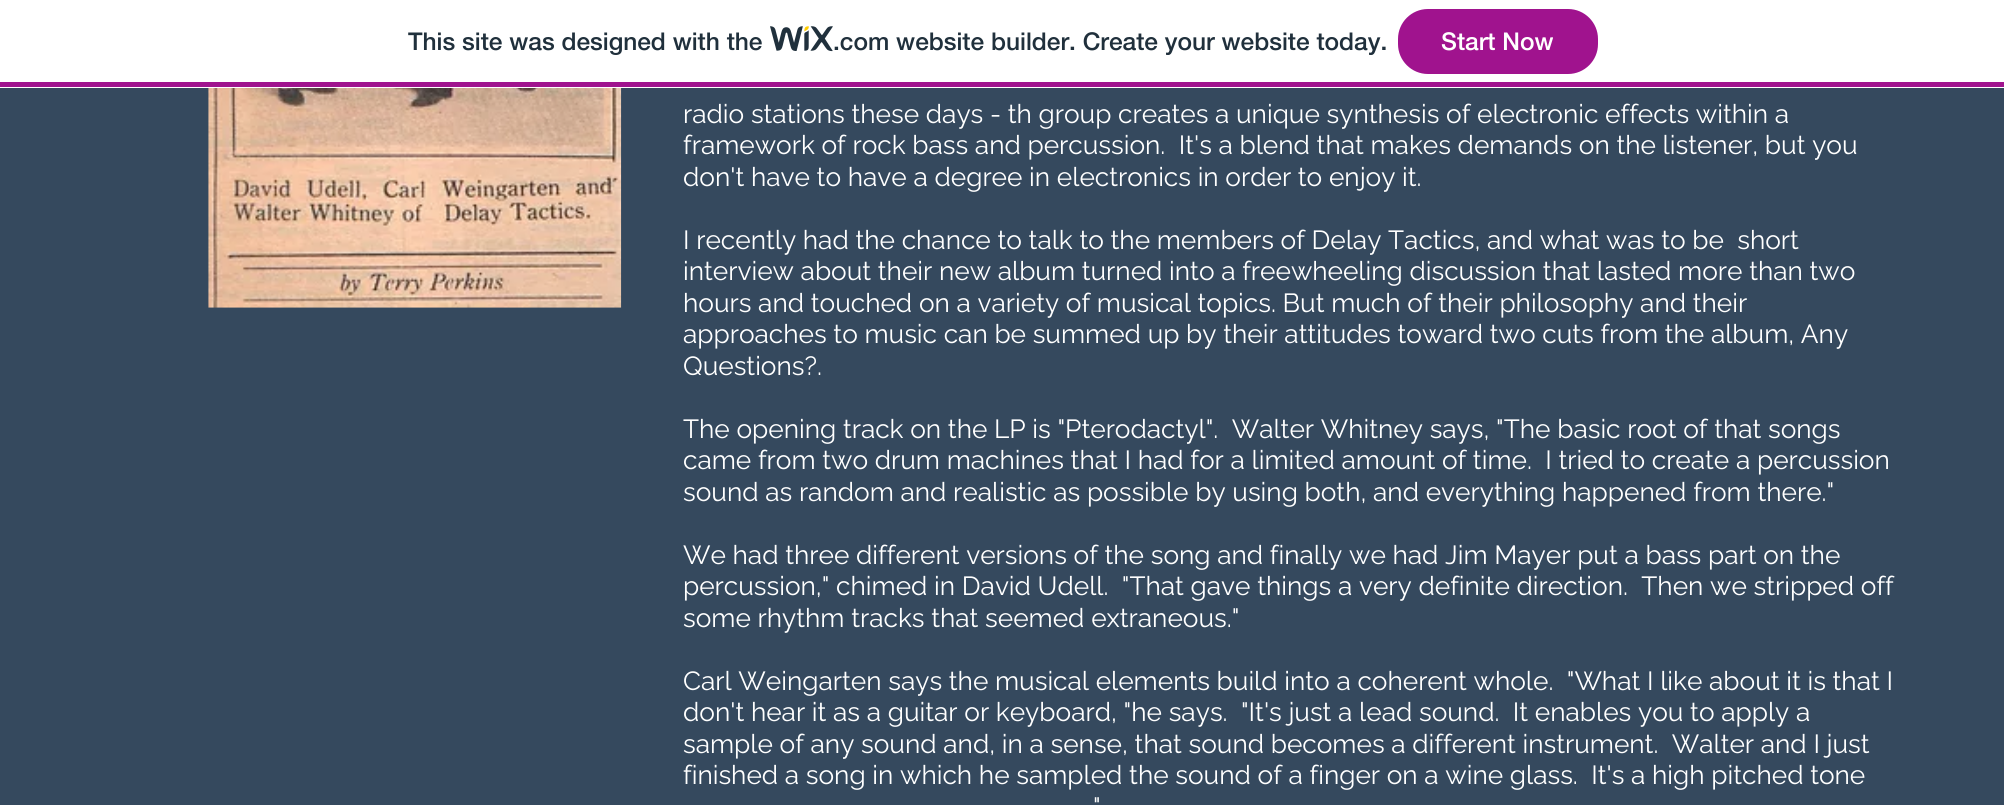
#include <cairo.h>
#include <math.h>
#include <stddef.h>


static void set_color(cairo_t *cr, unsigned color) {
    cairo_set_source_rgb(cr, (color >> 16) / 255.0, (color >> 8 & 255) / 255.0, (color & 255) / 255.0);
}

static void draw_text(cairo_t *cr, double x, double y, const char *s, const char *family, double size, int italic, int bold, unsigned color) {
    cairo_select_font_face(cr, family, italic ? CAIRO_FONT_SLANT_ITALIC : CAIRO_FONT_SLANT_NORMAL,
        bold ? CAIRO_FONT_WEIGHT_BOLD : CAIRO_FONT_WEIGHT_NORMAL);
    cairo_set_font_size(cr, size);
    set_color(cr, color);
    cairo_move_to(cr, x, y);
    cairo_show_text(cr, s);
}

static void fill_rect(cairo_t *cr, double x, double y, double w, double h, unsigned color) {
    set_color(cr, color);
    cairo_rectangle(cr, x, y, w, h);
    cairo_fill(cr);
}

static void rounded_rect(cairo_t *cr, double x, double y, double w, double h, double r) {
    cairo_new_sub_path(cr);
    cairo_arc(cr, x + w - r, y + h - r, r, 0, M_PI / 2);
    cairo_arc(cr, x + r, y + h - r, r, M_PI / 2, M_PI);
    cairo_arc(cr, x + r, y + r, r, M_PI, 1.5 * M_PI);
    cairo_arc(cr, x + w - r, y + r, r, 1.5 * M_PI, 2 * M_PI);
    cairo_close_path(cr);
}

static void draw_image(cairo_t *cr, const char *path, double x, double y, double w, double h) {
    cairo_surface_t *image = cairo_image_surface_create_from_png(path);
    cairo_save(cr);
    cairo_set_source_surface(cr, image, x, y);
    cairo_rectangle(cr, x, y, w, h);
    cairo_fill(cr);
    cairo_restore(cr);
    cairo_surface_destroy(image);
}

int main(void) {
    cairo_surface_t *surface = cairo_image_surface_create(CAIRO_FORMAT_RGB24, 2004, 805);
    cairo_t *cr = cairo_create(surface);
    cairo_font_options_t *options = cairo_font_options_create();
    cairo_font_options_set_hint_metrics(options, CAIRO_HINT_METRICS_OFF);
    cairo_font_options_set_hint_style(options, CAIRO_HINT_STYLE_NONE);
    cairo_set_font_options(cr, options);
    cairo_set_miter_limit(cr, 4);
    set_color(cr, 0x35495E);
    cairo_paint(cr);
    fill_rect(cr, 0, 0, 2004, 88, 0xFFFFFF);
    fill_rect(cr, 0, 82, 2004, 5, 0xA0138E);
    draw_text(cr, 408, 50, "This site was designed with the", "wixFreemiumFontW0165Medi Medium", 24.5, 0, 0, 0x20303C);
    draw_image(cr, "assets/img1.png", 770, 26, 63, 26);
    draw_text(cr, 833, 50, ".com website builder. Create your website today.", "wixFreemiumFontW0165Medi Medium", 24.5, 0, 0, 0x20303C);
    set_color(cr, 0xA0138E);
    rounded_rect(cr, 1399, 10, 198, 63, 29);
    cairo_fill_preserve(cr);
    cairo_stroke(cr);
    draw_text(cr, 1441, 50, "Start Now", "wixFreemiumFontW0165Medi Medium", 24.5, 0, 0, 0xFFFFFF);
    draw_image(cr, "assets/img2.png", 208, 88, 414, 220);
    draw_text(cr, 683, 123, "radio stations these days - th group creates a unique synthesis of electronic effects within a", "Raleway", 26.25, 0, 0, 0xFFFFFF);
    draw_text(cr, 683, 154, "framework of rock bass and percussion.  It's a blend that makes demands on the listener, but you", "Raleway", 26.25, 0, 0, 0xFFFFFF);
    draw_text(cr, 683, 186, "don't have to have a degree in electronics in order to enjoy it.", "Raleway", 26.25, 0, 0, 0xFFFFFF);
    draw_text(cr, 683, 249, "I recently had the chance to talk to the members of Delay Tactics, and what was to be  short", "Raleway", 26.25, 0, 0, 0xFFFFFF);
    draw_text(cr, 683, 280, "interview about their new album turned into a freewheeling discussion that lasted more than two", "Raleway", 26.25, 0, 0, 0xFFFFFF);
    draw_text(cr, 683, 312, "hours and touched on a variety of musical topics. But much of their philosophy and their", "Raleway", 26.25, 0, 0, 0xFFFFFF);
    draw_text(cr, 683, 343, "approaches to music can be summed up by their attitudes toward two cuts from the album, Any", "Raleway", 26.25, 0, 0, 0xFFFFFF);
    draw_text(cr, 683, 375, "Questions?.", "Raleway", 26.25, 0, 0, 0xFFFFFF);
    draw_text(cr, 683, 438, "The opening track on the LP is \"Pterodactyl\".  Walter Whitney says, \"The basic root of that songs", "Raleway", 26.25, 0, 0, 0xFFFFFF);
    draw_text(cr, 683, 469, "came from two drum machines that I had for a limited amount of time.  I tried to create a percussion", "Raleway", 26.25, 0, 0, 0xFFFFFF);
    draw_text(cr, 683, 501, "sound as random and realistic as possible by using both, and everything happened from there.\"", "Raleway", 26.25, 0, 0, 0xFFFFFF);
    draw_text(cr, 683, 564, "We had three different versions of the song and finally we had Jim Mayer put a bass part on the", "Raleway", 26.25, 0, 0, 0xFFFFFF);
    draw_text(cr, 683, 595, "percussion,\" chimed in David Udell.  \"That gave things a very definite direction.  Then we stripped off", "Raleway", 26.25, 0, 0, 0xFFFFFF);
    draw_text(cr, 683, 627, "some rhythm tracks that seemed extraneous.\"", "Raleway", 26.25, 0, 0, 0xFFFFFF);
    draw_text(cr, 683, 690, "Carl Weingarten says the musical elements build into a coherent whole.  \"What I like about it is that I", "Raleway", 26.25, 0, 0, 0xFFFFFF);
    draw_text(cr, 683, 721, "don't hear it as a guitar or keyboard, \"he says.  \"It's just a lead sound.  It enables you to apply a", "Raleway", 26.25, 0, 0, 0xFFFFFF);
    draw_text(cr, 683, 753, "sample of any sound and, in a sense, that sound becomes a different instrument.  Walter and I just", "Raleway", 26.25, 0, 0, 0xFFFFFF);
    draw_text(cr, 683, 784, "finished a song in which he sampled the sound of a finger on a wine glass.  It's a high pitched tone", "Raleway", 26.25, 0, 0, 0xFFFFFF);
    draw_text(cr, 1093, 816, "\"", "Raleway", 26.25, 0, 0, 0xFFFFFF);
    cairo_surface_write_to_png(surface, "output.png");
    cairo_font_options_destroy(options);
    cairo_destroy(cr);
    cairo_surface_destroy(surface);
    return 0;
}
